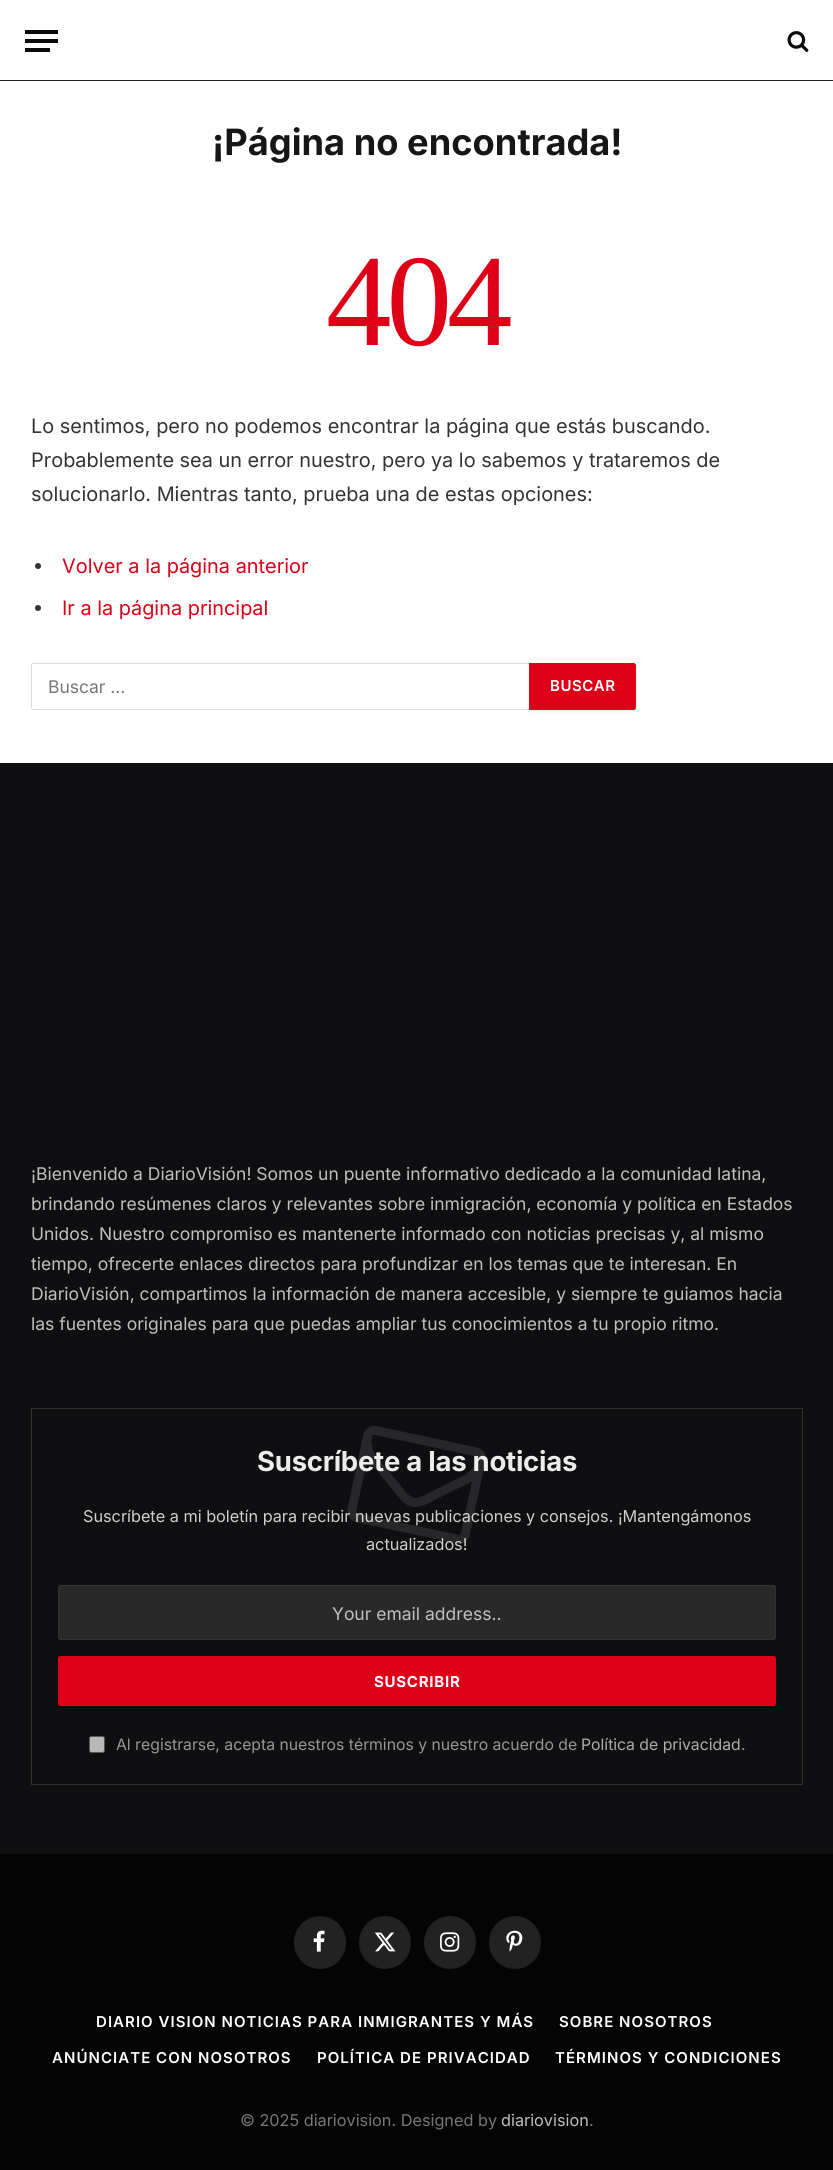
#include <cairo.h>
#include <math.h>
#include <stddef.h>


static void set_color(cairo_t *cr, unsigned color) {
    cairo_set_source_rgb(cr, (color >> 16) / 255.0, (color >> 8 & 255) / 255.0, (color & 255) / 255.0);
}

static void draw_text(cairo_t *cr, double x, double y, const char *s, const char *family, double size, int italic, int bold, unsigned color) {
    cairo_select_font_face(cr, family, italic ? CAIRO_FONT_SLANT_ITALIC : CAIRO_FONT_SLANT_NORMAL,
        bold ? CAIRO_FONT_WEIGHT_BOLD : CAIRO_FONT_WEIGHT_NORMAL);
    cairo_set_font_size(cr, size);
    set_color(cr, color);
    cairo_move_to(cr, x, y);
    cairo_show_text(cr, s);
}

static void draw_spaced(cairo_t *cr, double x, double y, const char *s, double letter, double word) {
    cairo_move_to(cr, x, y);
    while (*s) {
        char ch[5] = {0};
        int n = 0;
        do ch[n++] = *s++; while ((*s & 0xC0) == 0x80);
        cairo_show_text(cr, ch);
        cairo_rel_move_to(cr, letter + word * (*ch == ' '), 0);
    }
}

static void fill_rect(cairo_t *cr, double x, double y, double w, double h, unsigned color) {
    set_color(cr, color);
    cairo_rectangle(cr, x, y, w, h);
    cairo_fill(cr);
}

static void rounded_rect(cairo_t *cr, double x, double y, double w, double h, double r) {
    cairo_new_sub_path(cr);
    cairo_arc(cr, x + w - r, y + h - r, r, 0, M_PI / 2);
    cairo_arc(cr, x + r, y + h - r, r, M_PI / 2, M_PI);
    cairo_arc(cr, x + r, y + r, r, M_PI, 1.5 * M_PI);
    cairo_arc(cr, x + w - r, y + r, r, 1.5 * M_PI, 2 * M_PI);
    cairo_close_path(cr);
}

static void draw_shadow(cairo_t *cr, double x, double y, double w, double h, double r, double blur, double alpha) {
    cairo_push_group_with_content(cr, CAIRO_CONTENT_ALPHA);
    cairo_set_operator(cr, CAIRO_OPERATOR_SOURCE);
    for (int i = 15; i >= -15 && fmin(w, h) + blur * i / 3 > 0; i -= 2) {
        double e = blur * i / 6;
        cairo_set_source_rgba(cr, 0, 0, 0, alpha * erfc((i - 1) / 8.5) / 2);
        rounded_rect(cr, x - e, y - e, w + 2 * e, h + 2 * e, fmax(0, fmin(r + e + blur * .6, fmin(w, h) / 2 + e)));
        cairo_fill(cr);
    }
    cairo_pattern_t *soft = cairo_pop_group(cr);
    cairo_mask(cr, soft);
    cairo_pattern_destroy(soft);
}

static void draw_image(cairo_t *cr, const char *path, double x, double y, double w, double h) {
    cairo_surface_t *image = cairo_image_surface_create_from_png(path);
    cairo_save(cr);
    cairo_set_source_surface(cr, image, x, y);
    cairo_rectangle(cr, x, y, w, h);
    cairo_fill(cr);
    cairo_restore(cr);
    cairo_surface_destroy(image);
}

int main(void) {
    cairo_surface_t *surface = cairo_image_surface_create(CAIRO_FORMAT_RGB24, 833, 2170);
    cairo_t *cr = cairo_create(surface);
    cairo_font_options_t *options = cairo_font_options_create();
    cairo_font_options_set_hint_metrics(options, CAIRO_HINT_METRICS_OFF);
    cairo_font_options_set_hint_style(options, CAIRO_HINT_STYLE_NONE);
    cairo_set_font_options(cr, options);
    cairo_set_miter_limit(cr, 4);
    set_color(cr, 0xFFFFFF);
    cairo_paint(cr);
    fill_rect(cr, 0, 80, 833, 1, 0x222222);
    fill_rect(cr, 25, 48, 25, 4, 0x0A0A0A);
    fill_rect(cr, 25, 30, 33, 4, 0x0A0A0A);
    fill_rect(cr, 25, 39, 33, 4, 0x0A0A0A);
    draw_image(cr, "assets/img1.png", 787, 31, 22, 21);
    draw_text(cr, 212, 155, "¡Página no encontrada!", "Inter", 36.25, 0, 1, 0x161616);
    cairo_select_font_face(cr, "Liberation Serif", CAIRO_FONT_SLANT_NORMAL, CAIRO_FONT_WEIGHT_NORMAL);
    cairo_set_font_size(cr, 131);
    set_color(cr, 0xDD0017);
    draw_spaced(cr, 326, 345, "404", -5, 0);
    draw_text(cr, 31, 433, "Lo sentimos, pero no podemos encontrar la página que estás buscando.", "Inter", 19.9, 0, 0, 0x333333);
    draw_text(cr, 31, 467, "Probablemente sea un error nuestro, pero ya lo sabemos y trataremos de", "Inter", 19.9, 0, 0, 0x333333);
    draw_text(cr, 31, 501, "solucionarlo. Mientras tanto, prueba una de estas opciones:", "Inter", 19.9, 0, 0, 0x333333);
    cairo_new_path(cr);
    cairo_arc(cr, 38, 566, 3, 0, 2 * M_PI);
    cairo_fill(cr);
    draw_text(cr, 62, 573, "Volver a la página anterior", "Inter", 19.9, 0, 0, 0xDD0017);
    set_color(cr, 0x333333);
    cairo_new_path(cr);
    cairo_arc(cr, 38, 608, 3, 0, 2 * M_PI);
    cairo_fill(cr);
    draw_text(cr, 62, 615, "Ir a la página principal", "Inter", 19.9, 0, 0, 0xDD0017);
    rounded_rect(cr, 31.5, 663.5, 499, 46, 2);
    set_color(cr, 0xDDDDDD);
    cairo_set_line_width(cr, 1);
    cairo_stroke(cr);
    draw_text(cr, 48, 693, "Buscar …", "Inter", 17.5, 0, 0, 0x777777);
    set_color(cr, 0x000000);
    draw_shadow(cr, 534, 670, 97, 38, 0, 4.5, 0.16);
    set_color(cr, 0xDD0017);
    cairo_new_path(cr);
    cairo_move_to(cr, 529, 663);
    cairo_line_to(cr, 633.5, 663);
    cairo_curve_to(cr, 635, 663, 636, 664, 636, 665.5);
    cairo_line_to(cr, 636, 707.5);
    cairo_curve_to(cr, 636, 709, 635, 710, 633.5, 710);
    cairo_line_to(cr, 529, 710);
    cairo_close_path(cr);
    cairo_fill(cr);
    cairo_select_font_face(cr, "Inter SemiBold", CAIRO_FONT_SLANT_NORMAL, CAIRO_FONT_WEIGHT_NORMAL);
    cairo_set_font_size(cr, 15);
    set_color(cr, 0xFFFFFF);
    draw_spaced(cr, 550, 691, "BUSCAR", 0.5, 0);
    fill_rect(cr, 0, 763, 833, 1091, 0x0F0F11);
    draw_text(cr, 31, 1180, "¡Bienvenido a DiarioVisión! Somos un puente informativo dedicado a la comunidad latina,", "Inter", 17.5, 0, 0, 0xC0C0C0);
    draw_text(cr, 31, 1210, "brindando resúmenes claros y relevantes sobre inmigración, economía y política en Estados", "Inter", 17.5, 0, 0, 0xC0C0C0);
    draw_text(cr, 31, 1240, "Unidos. Nuestro compromiso es mantenerte informado con noticias precisas y, al mismo", "Inter", 17.5, 0, 0, 0xC0C0C0);
    draw_text(cr, 31, 1270, "tiempo, ofrecerte enlaces directos para profundizar en los temas que te interesan. En", "Inter", 17.5, 0, 0, 0xC0C0C0);
    draw_text(cr, 31, 1300, "DiarioVisión, compartimos la información de manera accesible, y siempre te guiamos hacia", "Inter", 17.5, 0, 0, 0xC0C0C0);
    draw_text(cr, 31, 1330, "las fuentes originales para que puedas ampliar tus conocimientos a tu propio ritmo.", "Inter", 17.5, 0, 0, 0xC0C0C0);
    cairo_rectangle(cr, 31.5, 1408.5, 771, 376);
    set_color(cr, 0x303030);
    cairo_stroke(cr);
    cairo_select_font_face(cr, "Inter", CAIRO_FONT_SLANT_NORMAL, CAIRO_FONT_WEIGHT_BOLD);
    cairo_set_font_size(cr, 27.5);
    set_color(cr, 0xECECEC);
    draw_spaced(cr, 257, 1471, "Suscríbete a las noticias", -0.25, 0);
    draw_text(cr, 83, 1522, "Suscríbete a mi boletín para recibir nuevas publicaciones y consejos. ¡Mantengámonos", "Inter", 16.25, 0, 0, 0xCFCFCF);
    draw_text(cr, 366, 1550, "actualizados!", "Inter", 16.25, 0, 0, 0xCFCFCF);
    draw_image(cr, "assets/img2.png", 347, 1426, 139, 118);
    set_color(cr, 0x292929);
    rounded_rect(cr, 58.5, 1585.5, 717, 54, 2);
    cairo_fill_preserve(cr);
    set_color(cr, 0x333333);
    cairo_stroke(cr);
    draw_text(cr, 332, 1620, "Your email address..", "Inter", 17.5, 0, 0, 0xC0C0C0);
    set_color(cr, 0xDD0017);
    rounded_rect(cr, 58, 1656, 718, 50, 2.5);
    cairo_fill(cr);
    cairo_select_font_face(cr, "Inter", CAIRO_FONT_SLANT_NORMAL, CAIRO_FONT_WEIGHT_BOLD);
    cairo_set_font_size(cr, 15);
    set_color(cr, 0xFFFFFF);
    draw_spaced(cr, 374, 1687, "SUSCRIBIR", 0.75, 0);
    set_color(cr, 0xB8B8B8);
    rounded_rect(cr, 89.5, 1736.5, 15, 16, 2);
    cairo_fill_preserve(cr);
    set_color(cr, 0x585858);
    cairo_stroke(cr);
    draw_text(cr, 116, 1750, "Al registrarse, acepta nuestros términos y nuestro acuerdo de", "Inter", 15.75, 0, 0, 0x979797);
    draw_text(cr, 581, 1750, "Política de privacidad", "Inter", 15.75, 0, 0, 0xADADAD);
    draw_text(cr, 741, 1750, ".", "Inter", 15.75, 0, 0, 0x979797);
    fill_rect(cr, 0, 1854, 833, 316, 0x040404);
    set_color(cr, 0x222222);
    rounded_rect(cr, 294, 1916, 52, 53, 26);
    cairo_fill(cr);
    rounded_rect(cr, 294.5, 1916.5, 51, 52, 25.5);
    cairo_set_source_rgba(cr, 0, 0, 0, 0.09);
    cairo_stroke(cr);
    draw_image(cr, "assets/img3.png", 313, 1930, 12, 22);
    set_color(cr, 0x222222);
    rounded_rect(cr, 359, 1916, 52, 53, 26);
    cairo_fill(cr);
    rounded_rect(cr, 359.5, 1916.5, 51, 52, 25.5);
    cairo_set_source_rgba(cr, 0, 0, 0, 0.09);
    cairo_stroke(cr);
    draw_image(cr, "assets/img4.png", 374, 1932, 22, 20);
    set_color(cr, 0x222222);
    rounded_rect(cr, 424, 1916, 52, 53, 26);
    cairo_fill(cr);
    rounded_rect(cr, 424.5, 1916.5, 51, 52, 25.5);
    cairo_set_source_rgba(cr, 0, 0, 0, 0.09);
    cairo_stroke(cr);
    draw_image(cr, "assets/img5.png", 440, 1932, 20, 20);
    set_color(cr, 0x222222);
    rounded_rect(cr, 489, 1916, 52, 53, 26);
    cairo_fill(cr);
    rounded_rect(cr, 489.5, 1916.5, 51, 52, 25.5);
    cairo_set_source_rgba(cr, 0, 0, 0, 0.09);
    cairo_stroke(cr);
    draw_image(cr, "assets/img6.png", 506, 1930, 17, 22);
    cairo_select_font_face(cr, "Inter SemiBold", CAIRO_FONT_SLANT_NORMAL, CAIRO_FONT_WEIGHT_NORMAL);
    cairo_set_font_size(cr, 15);
    set_color(cr, 0xFFFFFF);
    draw_spaced(cr, 96, 2027, "DIARIO VISION NOTICIAS PARA INMIGRANTES Y MÁS", 1.05, 0);
    draw_spaced(cr, 559, 2027, "SOBRE NOSOTROS", 1.05, 0);
    draw_spaced(cr, 52, 2063, "ANÚNCIATE CON NOSOTROS", 1.05, 0);
    draw_spaced(cr, 317, 2063, "POLÍTICA DE PRIVACIDAD", 1.05, 0);
    draw_spaced(cr, 555, 2063, "TÉRMINOS Y CONDICIONES", 1.05, 0);
    draw_text(cr, 240, 2126, "© 2025 diariovision. Designed by", "Inter", 16.25, 0, 0, 0x777777);
    draw_text(cr, 501, 2126, "diariovision", "Inter", 16.25, 0, 0, 0xC0C0C0);
    draw_text(cr, 589, 2126, ".", "Inter", 16.25, 0, 0, 0x777777);
    cairo_surface_write_to_png(surface, "output.png");
    cairo_font_options_destroy(options);
    cairo_destroy(cr);
    cairo_surface_destroy(surface);
    return 0;
}
